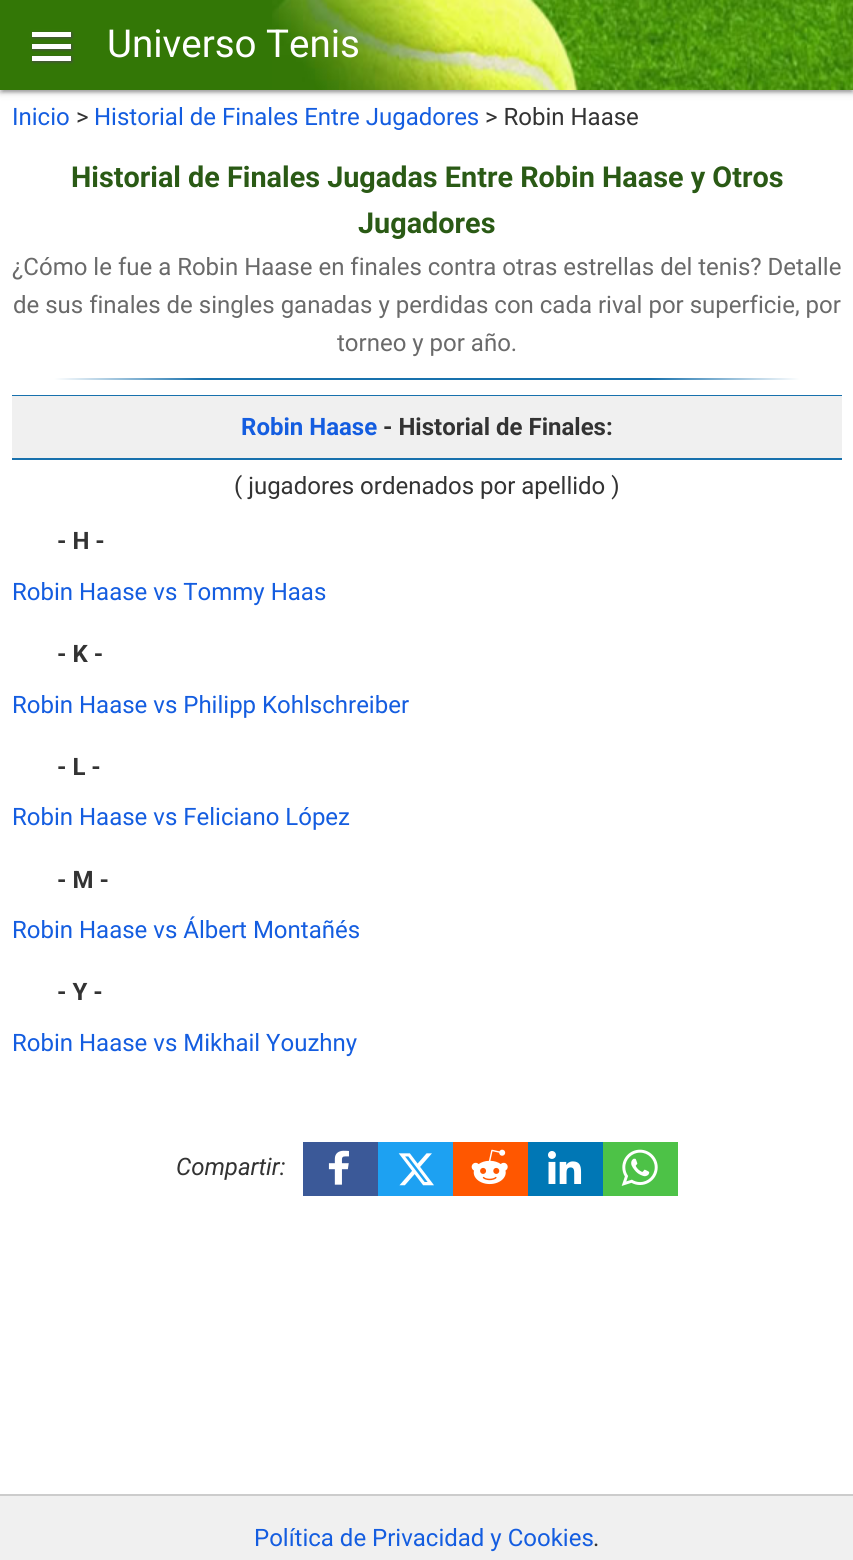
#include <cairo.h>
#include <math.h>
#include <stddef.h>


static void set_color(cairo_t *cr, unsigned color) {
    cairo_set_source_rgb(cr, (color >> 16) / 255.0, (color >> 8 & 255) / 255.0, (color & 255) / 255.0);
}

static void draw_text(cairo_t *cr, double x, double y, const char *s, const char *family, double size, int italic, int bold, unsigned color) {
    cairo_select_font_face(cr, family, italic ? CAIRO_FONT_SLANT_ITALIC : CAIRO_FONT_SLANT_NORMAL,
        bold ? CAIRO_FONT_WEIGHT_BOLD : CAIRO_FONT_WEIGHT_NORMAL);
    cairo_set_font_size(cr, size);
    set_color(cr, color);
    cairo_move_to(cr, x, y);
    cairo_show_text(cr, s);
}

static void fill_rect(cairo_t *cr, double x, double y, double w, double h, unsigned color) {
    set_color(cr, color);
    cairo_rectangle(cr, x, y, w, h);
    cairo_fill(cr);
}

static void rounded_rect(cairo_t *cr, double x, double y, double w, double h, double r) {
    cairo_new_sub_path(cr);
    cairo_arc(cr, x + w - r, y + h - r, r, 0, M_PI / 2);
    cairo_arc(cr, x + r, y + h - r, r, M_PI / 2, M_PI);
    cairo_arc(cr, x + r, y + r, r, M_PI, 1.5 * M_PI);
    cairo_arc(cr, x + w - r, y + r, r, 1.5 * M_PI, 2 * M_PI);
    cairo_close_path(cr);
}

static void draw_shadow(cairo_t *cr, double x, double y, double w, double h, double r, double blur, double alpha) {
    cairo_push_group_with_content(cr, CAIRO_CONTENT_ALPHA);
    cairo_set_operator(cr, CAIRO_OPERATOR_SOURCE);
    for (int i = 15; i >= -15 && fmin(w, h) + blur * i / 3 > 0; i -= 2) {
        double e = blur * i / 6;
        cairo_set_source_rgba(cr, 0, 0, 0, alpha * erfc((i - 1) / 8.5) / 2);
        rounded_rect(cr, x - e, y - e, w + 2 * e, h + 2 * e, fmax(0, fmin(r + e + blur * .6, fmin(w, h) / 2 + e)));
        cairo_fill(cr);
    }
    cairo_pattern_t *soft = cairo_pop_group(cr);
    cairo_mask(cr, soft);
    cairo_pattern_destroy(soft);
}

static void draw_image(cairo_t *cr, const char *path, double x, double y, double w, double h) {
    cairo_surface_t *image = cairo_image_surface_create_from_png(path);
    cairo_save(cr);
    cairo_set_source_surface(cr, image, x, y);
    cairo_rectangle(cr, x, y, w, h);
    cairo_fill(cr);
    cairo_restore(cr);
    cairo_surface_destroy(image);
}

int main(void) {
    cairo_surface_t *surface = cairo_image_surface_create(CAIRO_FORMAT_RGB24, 853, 1560);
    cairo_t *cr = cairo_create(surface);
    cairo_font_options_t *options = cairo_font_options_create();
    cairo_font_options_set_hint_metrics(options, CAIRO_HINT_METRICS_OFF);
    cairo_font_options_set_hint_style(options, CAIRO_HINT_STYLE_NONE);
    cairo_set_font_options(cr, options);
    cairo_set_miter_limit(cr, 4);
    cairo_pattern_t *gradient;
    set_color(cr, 0xFFFFFF);
    cairo_paint(cr);
    set_color(cr, 0x000000);
    draw_shadow(cr, 0, 2, 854, 90, 0, 4, 0.2);
    draw_shadow(cr, 3, 8, 848, 84, 0, 1, 0.12);
    draw_shadow(cr, 0, 3, 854, 90, 0, 1.5, 0.14);
    fill_rect(cr, 0, 0, 272, 90, 0x337706);
    draw_image(cr, "assets/img1.png", 272, 0, 581, 90);
    set_color(cr, 0x4A4A4A);
    draw_shadow(cr, 33, 33, 39, 5, 0, 1.5, 1);
    fill_rect(cr, 32, 32, 39, 5, 0xFFFFFF);
    set_color(cr, 0x4A4A4A);
    draw_shadow(cr, 33, 45, 39, 5, 0, 1.5, 1);
    fill_rect(cr, 32, 44, 39, 5, 0xFFFFFF);
    set_color(cr, 0x4A4A4A);
    draw_shadow(cr, 33, 57, 39, 5, 0, 1.5, 1);
    fill_rect(cr, 32, 56, 39, 5, 0xFFFFFF);
    draw_text(cr, 107, 57, "Universo Tenis", "Roboto", 38.5, 0, 0, 0xFFFFFF);
    draw_text(cr, 12, 125, "Inicio", "Roboto", 24, 0, 0, 0x145DE0);
    draw_text(cr, 76, 125, ">", "Roboto", 24, 0, 0, 0x333333);
    draw_text(cr, 94, 125, "Historial de Finales Entre Jugadores", "Roboto", 24, 0, 0, 0x145DE0);
    draw_text(cr, 485, 125, "> Robin Haase", "Roboto", 24, 0, 0, 0x333333);
    draw_text(cr, 71, 187, "Historial de Finales Jugadas Entre Robin Haase y Otros", "Roboto", 28.8, 0, 1, 0x2A5A15);
    draw_text(cr, 358, 233, "Jugadores", "Roboto", 28.8, 0, 1, 0x2A5A15);
    draw_text(cr, 12, 275, "¿Cómo le fue a Robin Haase en finales contra otras estrellas del tenis? Detalle", "Roboto", 24, 0, 0, 0x6A6A6A);
    draw_text(cr, 13, 313, "de sus finales de singles ganadas y perdidas con cada rival por superficie, por", "Roboto", 24, 0, 0, 0x6A6A6A);
    draw_text(cr, 337, 351, "torneo y por año.", "Roboto", 24, 0, 0, 0x6A6A6A);
    gradient = cairo_pattern_create_linear(54, 379, 800, 379);
    cairo_pattern_add_color_stop_rgba(gradient, 0, 1, 1, 1, 1);
    cairo_pattern_add_color_stop_rgba(gradient, 0.2, 0.094, 0.443, 0.678, 1);
    cairo_pattern_add_color_stop_rgba(gradient, 0.8, 0.094, 0.443, 0.678, 1);
    cairo_pattern_add_color_stop_rgba(gradient, 1, 1, 1, 1, 1);
    cairo_set_source(cr, gradient);
    cairo_pattern_destroy(gradient);
    cairo_rectangle(cr, 54, 378, 746, 2);
    cairo_fill(cr);
    fill_rect(cr, 12, 395, 830, 1, 0x1871AD);
    fill_rect(cr, 12, 396, 830, 62, 0xF0F0F0);
    draw_text(cr, 241, 435, "Robin Haase", "Roboto", 24, 0, 1, 0x145DE0);
    draw_text(cr, 383, 435, "- Historial de Finales:", "Roboto", 24, 0, 1, 0x333333);
    fill_rect(cr, 12, 458, 830, 2, 0x1871AD);
    draw_text(cr, 234, 494, "( jugadores ordenados por apellido )", "Roboto", 24, 0, 0, 0x333333);
    draw_text(cr, 57, 549, "- H -", "Roboto", 24, 0, 1, 0x333333);
    draw_text(cr, 12, 600, "Robin Haase vs Tommy Haas", "Roboto", 24, 0, 0, 0x145DE0);
    draw_text(cr, 57, 662, "- K -", "Roboto", 24, 0, 1, 0x333333);
    draw_text(cr, 12, 713, "Robin Haase vs Philipp Kohlschreiber", "Roboto", 24, 0, 0, 0x145DE0);
    draw_text(cr, 57, 775, "- L -", "Roboto", 24, 0, 1, 0x333333);
    draw_text(cr, 12, 825, "Robin Haase vs Feliciano López", "Roboto", 24, 0, 0, 0x145DE0);
    draw_text(cr, 57, 888, "- M -", "Roboto", 24, 0, 1, 0x333333);
    draw_text(cr, 12, 938, "Robin Haase vs Álbert Montañés", "Roboto", 24, 0, 0, 0x145DE0);
    draw_text(cr, 57, 1000, "- Y -", "Roboto", 24, 0, 1, 0x333333);
    draw_text(cr, 12, 1051, "Robin Haase vs Mikhail Youzhny", "Roboto", 24, 0, 0, 0x145DE0);
    draw_text(cr, 176, 1175, "Compartir:", "Roboto", 24, 1, 0, 0x333333);
    fill_rect(cr, 303, 1142, 75, 54, 0x3B5998);
    draw_image(cr, "assets/img2.png", 328, 1150, 21, 35);
    fill_rect(cr, 378, 1142, 75, 54, 0x1DA1F2);
    draw_image(cr, "assets/img3.png", 398, 1153, 36, 33);
    fill_rect(cr, 453, 1142, 75, 54, 0xFF5700);
    draw_image(cr, "assets/img4.png", 471, 1149, 37, 36);
    fill_rect(cr, 528, 1142, 75, 54, 0x0077B5);
    draw_image(cr, "assets/img5.png", 548, 1151, 34, 33);
    fill_rect(cr, 603, 1142, 75, 54, 0x4DC247);
    draw_image(cr, "assets/img6.png", 621, 1149, 37, 37);
    fill_rect(cr, 0, 1496, 853, 64, 0xF0F0F0);
    fill_rect(cr, 0, 1494, 853, 2, 0xCCCCCC);
    draw_text(cr, 254, 1546, "Política de Privacidad y Cookies", "Roboto", 24, 0, 0, 0x145DE0);
    draw_text(cr, 593, 1546, ".", "Roboto", 24, 0, 0, 0x333333);
    cairo_surface_write_to_png(surface, "output.png");
    cairo_font_options_destroy(options);
    cairo_destroy(cr);
    cairo_surface_destroy(surface);
    return 0;
}
